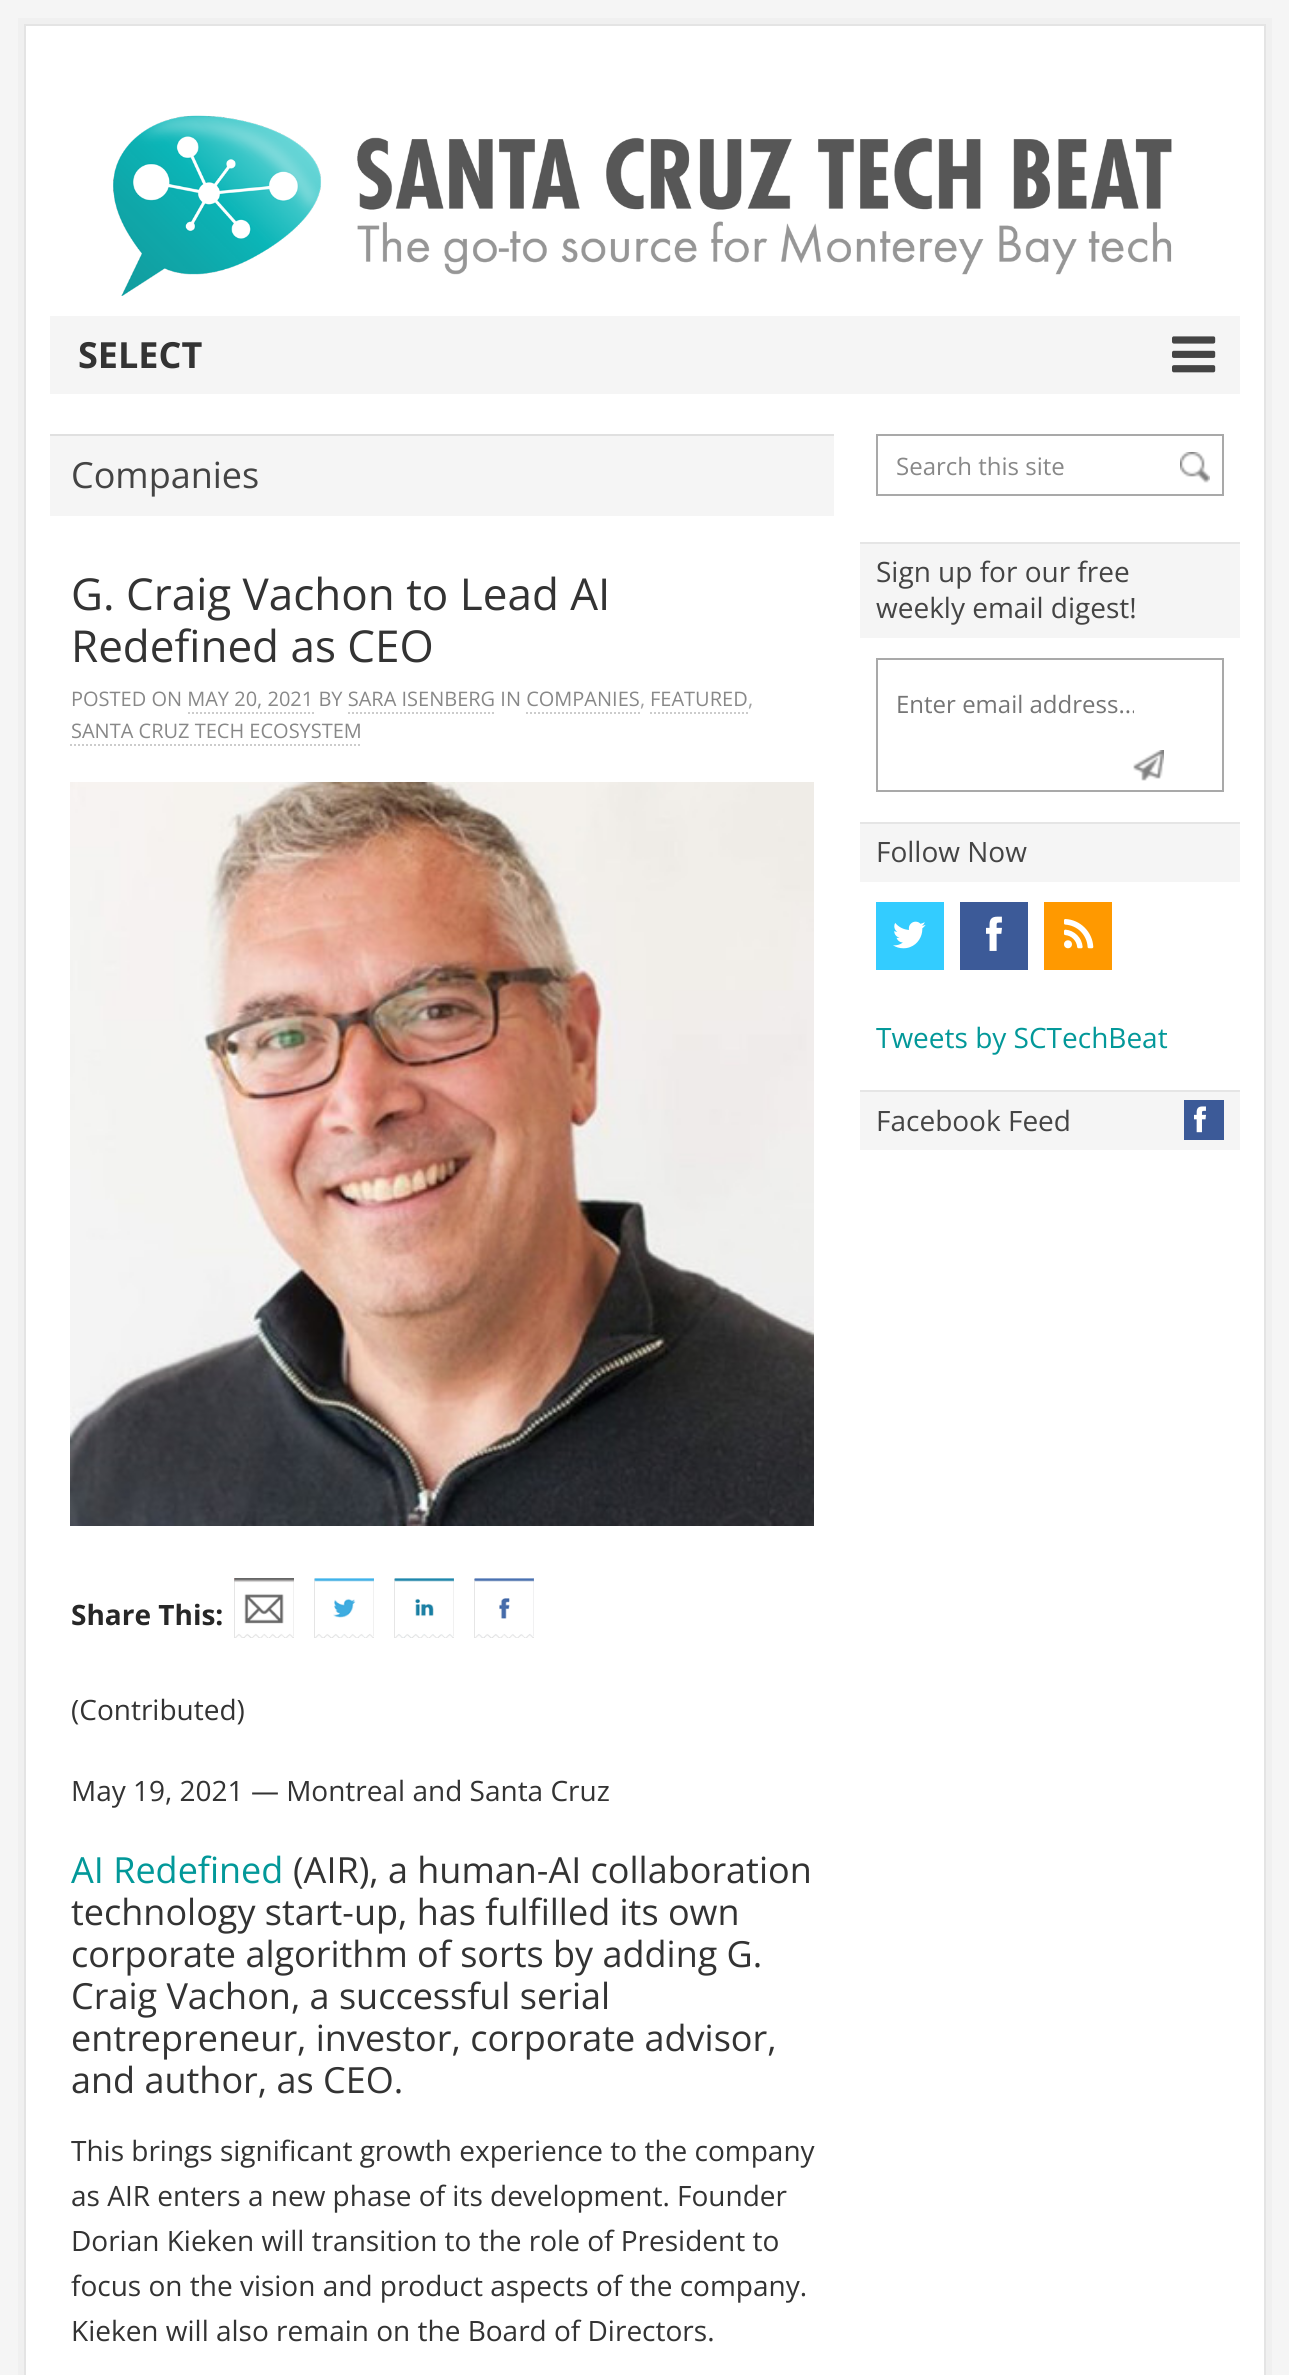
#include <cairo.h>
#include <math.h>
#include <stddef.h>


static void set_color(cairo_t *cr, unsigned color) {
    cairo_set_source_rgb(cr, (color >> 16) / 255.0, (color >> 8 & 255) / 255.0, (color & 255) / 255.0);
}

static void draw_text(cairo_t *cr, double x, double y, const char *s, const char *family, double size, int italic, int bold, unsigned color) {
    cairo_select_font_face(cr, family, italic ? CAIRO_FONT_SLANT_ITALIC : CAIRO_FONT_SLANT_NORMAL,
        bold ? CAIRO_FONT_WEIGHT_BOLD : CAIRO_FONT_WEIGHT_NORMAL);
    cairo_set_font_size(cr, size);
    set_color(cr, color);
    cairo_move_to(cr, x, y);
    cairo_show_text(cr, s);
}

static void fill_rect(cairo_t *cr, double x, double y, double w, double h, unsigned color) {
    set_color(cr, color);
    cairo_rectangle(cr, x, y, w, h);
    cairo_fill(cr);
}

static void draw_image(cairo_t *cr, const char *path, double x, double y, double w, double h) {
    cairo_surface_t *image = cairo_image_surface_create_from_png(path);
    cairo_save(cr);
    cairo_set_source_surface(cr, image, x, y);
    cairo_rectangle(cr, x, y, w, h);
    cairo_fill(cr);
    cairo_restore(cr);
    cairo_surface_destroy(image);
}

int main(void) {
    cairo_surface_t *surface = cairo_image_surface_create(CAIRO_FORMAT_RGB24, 1289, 2375);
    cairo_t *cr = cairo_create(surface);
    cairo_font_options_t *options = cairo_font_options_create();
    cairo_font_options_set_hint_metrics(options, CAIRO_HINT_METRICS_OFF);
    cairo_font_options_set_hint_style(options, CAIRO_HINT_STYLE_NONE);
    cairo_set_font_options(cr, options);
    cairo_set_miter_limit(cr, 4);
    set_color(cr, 0xF5F5F5);
    cairo_paint(cr);
    cairo_rectangle(cr, 22, 22, 1246, 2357);
    set_color(cr, 0xF0F0F0);
    cairo_set_line_width(cr, 8);
    cairo_stroke(cr);
    cairo_rectangle(cr, 25, 25, 1240, 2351);
    set_color(cr, 0xE4E4E4);
    cairo_set_line_width(cr, 2);
    cairo_stroke(cr);
    fill_rect(cr, 26, 26, 1238, 2349, 0xFFFFFF);
    draw_image(cr, "assets/img1.png", 113, 115, 1059, 181);
    fill_rect(cr, 50, 316, 1190, 78, 0xF5F5F5);
    draw_text(cr, 78, 368, "SELECT", "Open Sans", 36, 0, 1, 0x333333);
    draw_image(cr, "assets/img2.png", 1172, 336, 44, 37);
    fill_rect(cr, 50, 436, 784, 80, 0xF5F5F5);
    fill_rect(cr, 50, 434, 784, 2, 0xE0E0E0);
    draw_text(cr, 71, 488, "Companies", "Open Sans", 36, 0, 0, 0x444444);
    draw_text(cr, 71, 610, "G. Craig Vachon to Lead AI", "Open Sans", 44, 0, 0, 0x333333);
    draw_text(cr, 71, 662, "Redefined as CEO", "Open Sans", 44, 0, 0, 0x333333);
    draw_text(cr, 71, 706, "POSTED ON MAY 20, 2021 BY SARA ISENBERG IN COMPANIES", "Open Sans", 20, 0, 0, 0x888888);
    draw_text(cr, 640, 706, ",", "Open Sans", 20, 0, 0, 0xA0A0A0);
    draw_text(cr, 650, 706, "FEATURED", "Open Sans", 20, 0, 0, 0x888888);
    cairo_new_path(cr);
    cairo_move_to(cr, 650, 713);
    cairo_line_to(cr, 748, 713);
    set_color(cr, 0xCCCCCC);
    cairo_set_dash(cr, (double[]){2, 2}, 2, 0);
    cairo_stroke(cr);
    draw_text(cr, 748, 706, ",", "Open Sans", 20, 0, 0, 0xA0A0A0);
    cairo_new_path(cr);
    cairo_move_to(cr, 188, 713);
    cairo_line_to(cr, 314, 713);
    set_color(cr, 0xCCCCCC);
    cairo_stroke(cr);
    cairo_new_path(cr);
    cairo_move_to(cr, 348, 713);
    cairo_line_to(cr, 496, 713);
    cairo_stroke(cr);
    cairo_new_path(cr);
    cairo_move_to(cr, 526, 713);
    cairo_line_to(cr, 640, 713);
    cairo_stroke(cr);
    draw_text(cr, 71, 738, "SANTA CRUZ TECH ECOSYSTEM", "Open Sans", 20, 0, 0, 0x888888);
    cairo_new_path(cr);
    cairo_move_to(cr, 70, 745);
    cairo_line_to(cr, 362, 745);
    set_color(cr, 0xCCCCCC);
    cairo_stroke(cr);
    draw_image(cr, "assets/img3.png", 70, 782, 744, 744);
    draw_text(cr, 71, 1625, "Share This:", "Open Sans", 28, 0, 1, 0x272727);
    draw_image(cr, "assets/img4.png", 234, 1578, 60, 60);
    draw_image(cr, "assets/img5.png", 314, 1578, 60, 60);
    draw_image(cr, "assets/img6.png", 394, 1578, 60, 60);
    draw_image(cr, "assets/img7.png", 474, 1578, 60, 60);
    draw_text(cr, 71, 1720, "(Contributed)", "Open Sans", 28, 0, 0, 0x333333);
    draw_text(cr, 71, 1801, "May 19, 2021 — Montreal and Santa Cruz", "Open Sans", 28, 0, 0, 0x333333);
    draw_text(cr, 71, 1883, "AI Redefined", "Open Sans", 36, 0, 0, 0x029899);
    draw_text(cr, 293, 1883, "(AIR), a human-AI collaboration", "Open Sans", 36, 0, 0, 0x333333);
    draw_text(cr, 71, 1925, "technology start-up, has fulfilled its own", "Open Sans", 36, 0, 0, 0x333333);
    draw_text(cr, 71, 1967, "corporate algorithm of sorts by adding G.", "Open Sans", 36, 0, 0, 0x333333);
    draw_text(cr, 71, 2009, "Craig Vachon, a successful serial", "Open Sans", 36, 0, 0, 0x333333);
    draw_text(cr, 71, 2051, "entrepreneur, investor, corporate advisor,", "Open Sans", 36, 0, 0, 0x333333);
    draw_text(cr, 71, 2093, "and author, as CEO.", "Open Sans", 36, 0, 0, 0x333333);
    draw_text(cr, 71, 2161, "This brings significant growth experience to the company", "Open Sans", 28, 0, 0, 0x333333);
    draw_text(cr, 71, 2206, "as AIR enters a new phase of its development. Founder", "Open Sans", 28, 0, 0, 0x333333);
    draw_text(cr, 71, 2251, "Dorian Kieken will transition to the role of President to", "Open Sans", 28, 0, 0, 0x333333);
    draw_text(cr, 71, 2296, "focus on the vision and product aspects of the company.", "Open Sans", 28, 0, 0, 0x333333);
    draw_text(cr, 71, 2341, "Kieken will also remain on the Board of Directors.", "Open Sans", 28, 0, 0, 0x333333);
    cairo_rectangle(cr, 877, 435, 346, 60);
    set_color(cr, 0xA9A9A9);
    cairo_set_dash(cr, NULL, 0, 0);
    cairo_stroke(cr);
    draw_text(cr, 896, 475, "Search this site", "Open Sans", 24, 0, 0, 0x888888);
    draw_image(cr, "assets/img8.png", 1180, 452, 30, 31);
    fill_rect(cr, 860, 544, 380, 94, 0xF5F5F5);
    fill_rect(cr, 860, 542, 380, 2, 0xE5E5E5);
    draw_text(cr, 876, 582, "Sign up for our free", "Open Sans", 28, 0, 0, 0x444444);
    draw_text(cr, 876, 618, "weekly email digest!", "Open Sans", 28, 0, 0, 0x444444);
    cairo_rectangle(cr, 877, 659, 346, 132);
    set_color(cr, 0xA9A9A9);
    cairo_stroke(cr);
    cairo_save(cr);
    cairo_rectangle(cr, 896, 688, 238, 34);
    cairo_clip(cr);
    draw_text(cr, 896, 713, "Enter email address...", "Open Sans", 24, 0, 0, 0x757575);
    cairo_restore(cr);
    draw_image(cr, "assets/img9.png", 1133, 750, 31, 31);
    fill_rect(cr, 860, 824, 380, 58, 0xF5F5F5);
    fill_rect(cr, 860, 822, 380, 2, 0xE5E5E5);
    draw_text(cr, 876, 862, "Follow Now", "Open Sans", 28, 0, 0, 0x444444);
    fill_rect(cr, 876, 902, 68, 68, 0x33CCFF);
    draw_image(cr, "assets/img10.png", 893, 921, 33, 28);
    fill_rect(cr, 960, 902, 68, 68, 0x3C5A98);
    draw_image(cr, "assets/img11.png", 986, 916, 16, 35);
    fill_rect(cr, 1044, 902, 68, 68, 0xFF9900);
    draw_image(cr, "assets/img12.png", 1064, 919, 30, 30);
    draw_text(cr, 876, 1048, "Tweets by SCTechBeat", "Open Sans", 28, 0, 0, 0x029899);
    fill_rect(cr, 860, 1092, 380, 58, 0xF5F5F5);
    fill_rect(cr, 860, 1090, 380, 2, 0xE5E5E5);
    draw_text(cr, 876, 1131, "Facebook Feed", "Open Sans", 28, 0, 0, 0x444444);
    fill_rect(cr, 1184, 1100, 40, 40, 0x3C5A98);
    draw_image(cr, "assets/img13.png", 1194, 1106, 12, 27);
    cairo_surface_write_to_png(surface, "output.png");
    cairo_font_options_destroy(options);
    cairo_destroy(cr);
    cairo_surface_destroy(surface);
    return 0;
}
